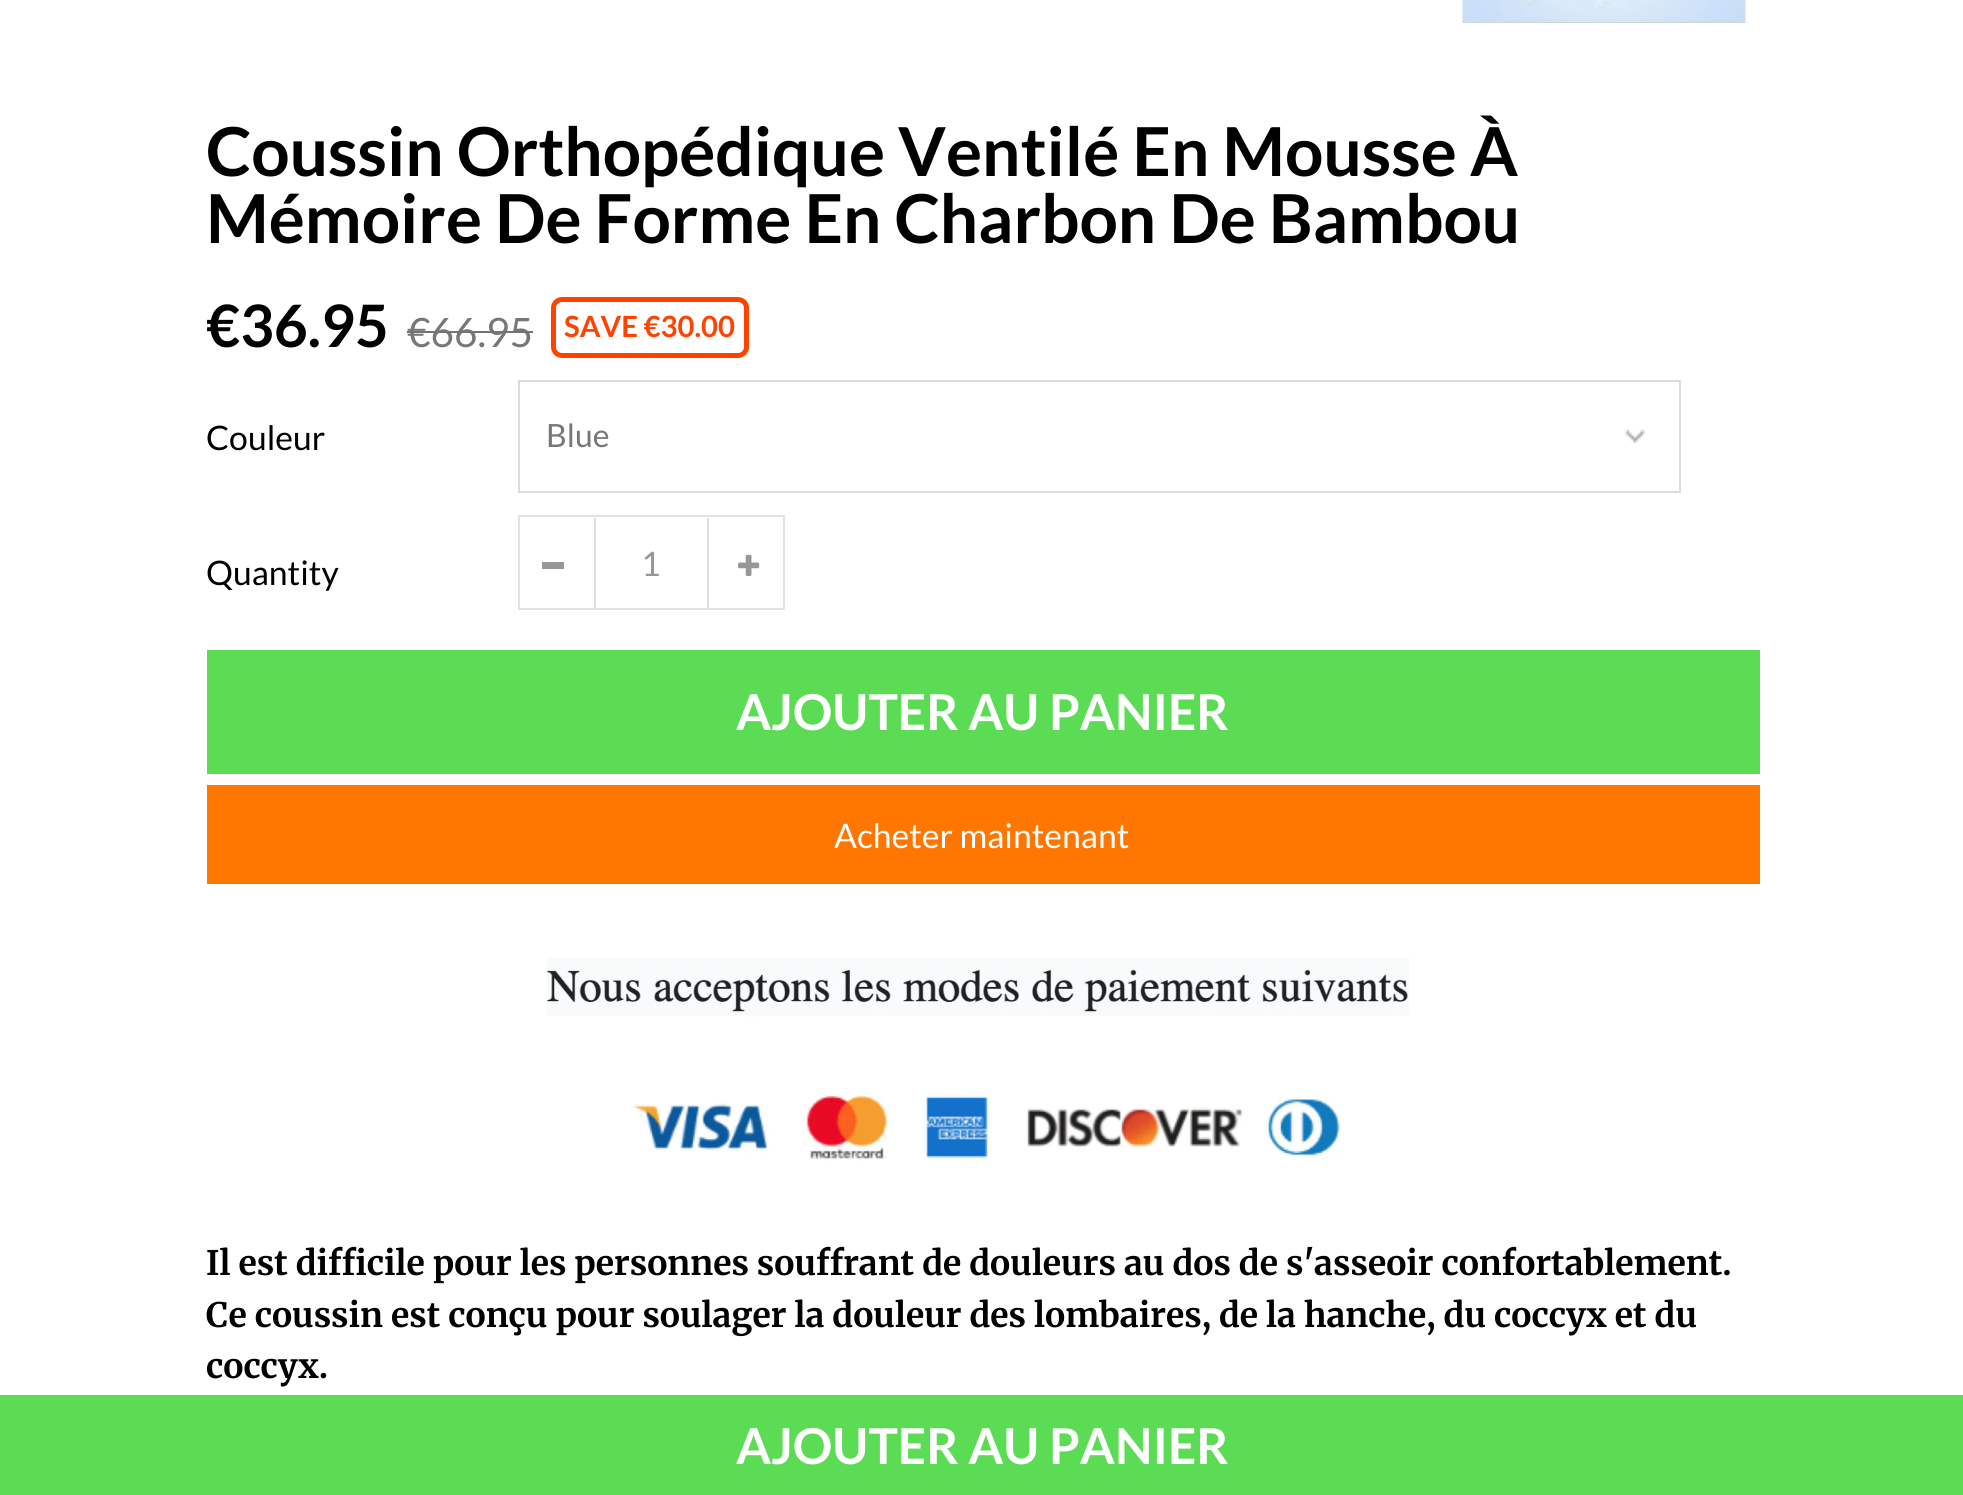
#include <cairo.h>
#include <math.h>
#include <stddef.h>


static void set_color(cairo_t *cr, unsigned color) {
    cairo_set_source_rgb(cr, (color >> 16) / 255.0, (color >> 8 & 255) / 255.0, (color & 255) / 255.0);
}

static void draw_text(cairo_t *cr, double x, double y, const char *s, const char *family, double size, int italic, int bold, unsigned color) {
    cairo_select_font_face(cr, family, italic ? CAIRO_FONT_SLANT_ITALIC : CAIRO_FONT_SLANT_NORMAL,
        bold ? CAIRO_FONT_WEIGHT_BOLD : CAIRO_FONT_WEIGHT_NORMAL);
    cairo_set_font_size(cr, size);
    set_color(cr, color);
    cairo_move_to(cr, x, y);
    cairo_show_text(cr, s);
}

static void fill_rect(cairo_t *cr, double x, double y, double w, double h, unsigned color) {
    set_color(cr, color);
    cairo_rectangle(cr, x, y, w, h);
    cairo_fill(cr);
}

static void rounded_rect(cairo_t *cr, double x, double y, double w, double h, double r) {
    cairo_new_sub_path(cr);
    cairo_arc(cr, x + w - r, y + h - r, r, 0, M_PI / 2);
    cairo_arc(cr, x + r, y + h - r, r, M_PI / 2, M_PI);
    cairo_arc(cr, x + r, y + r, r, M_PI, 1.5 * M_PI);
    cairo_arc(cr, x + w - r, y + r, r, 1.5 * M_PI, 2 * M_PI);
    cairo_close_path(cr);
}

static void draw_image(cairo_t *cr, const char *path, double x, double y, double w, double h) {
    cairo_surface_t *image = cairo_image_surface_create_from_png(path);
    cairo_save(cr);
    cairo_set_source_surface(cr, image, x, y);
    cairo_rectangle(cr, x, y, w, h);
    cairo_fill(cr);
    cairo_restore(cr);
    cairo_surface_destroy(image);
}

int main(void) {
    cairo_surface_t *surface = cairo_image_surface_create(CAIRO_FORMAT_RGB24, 1963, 1495);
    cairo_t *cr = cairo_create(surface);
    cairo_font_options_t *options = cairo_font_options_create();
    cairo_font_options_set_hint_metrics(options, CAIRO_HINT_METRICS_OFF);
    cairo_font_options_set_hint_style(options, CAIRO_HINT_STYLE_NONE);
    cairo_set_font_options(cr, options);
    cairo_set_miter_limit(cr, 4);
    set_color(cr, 0xFFFFFF);
    cairo_paint(cr);
    draw_image(cr, "assets/img1.png", 1462, 0, 284, 23);
    draw_text(cr, 206, 176, "Coussin Orthopédique Ventilé En Mousse À", "Lato", 67.5, 0, 1, 0x000000);
    draw_text(cr, 206, 243, "Mémoire De Forme En Charbon De Bambou", "Lato", 67.5, 0, 1, 0x000000);
    draw_text(cr, 206, 347, "€36.95", "Lato", 58.5, 0, 1, 0x000000);
    draw_text(cr, 407, 347, "€66.95", "Lato", 40.5, 0, 0, 0x777777);
    fill_rect(cr, 407, 331, 126, 2, 0x737373);
    rounded_rect(cr, 553.5, 299.5, 193, 56, 8.5);
    set_color(cr, 0xFF4200);
    cairo_set_line_width(cr, 5);
    cairo_stroke(cr);
    draw_text(cr, 564, 337, "SAVE €30.00", "Lato", 29.25, 0, 1, 0xFF4200);
    draw_text(cr, 206, 450, "Couleur", "Lato", 33.75, 0, 0, 0x000000);
    draw_image(cr, "assets/img2.png", 1624, 429, 21, 14);
    cairo_rectangle(cr, 519, 381, 1161, 111);
    set_color(cr, 0xDCDCDC);
    cairo_set_line_width(cr, 2);
    cairo_stroke(cr);
    draw_text(cr, 546, 447, "Blue", "Lato", 32, 0, 0, 0x777777);
    draw_text(cr, 206, 585, "Quantity", "Lato", 33.75, 0, 0, 0x000000);
    cairo_rectangle(cr, 519, 516, 265, 93);
    set_color(cr, 0xE2E2E2);
    cairo_stroke(cr);
    fill_rect(cr, 542, 562, 22, 7, 0x979797);
    fill_rect(cr, 707, 518, 2, 90, 0xE0E0E0);
    fill_rect(cr, 594, 518, 2, 90, 0xE0E0E0);
    draw_text(cr, 641, 576, "1", "Lato", 33.75, 0, 0, 0x979797);
    draw_image(cr, "assets/img3.png", 738, 554, 22, 22);
    fill_rect(cr, 207, 650, 1553, 124, 0x5BDC54);
    draw_text(cr, 736, 730, "AJOUTER AU PANIER", "Lato", 49.5, 0, 1, 0xFFFFFF);
    fill_rect(cr, 207, 785, 1553, 99, 0xFF7600);
    draw_text(cr, 834, 848, "Acheter maintenant", "Lato", 33.75, 0, 0, 0xFFFFFF);
    draw_image(cr, "assets/img4.png", 546, 958, 863, 203);
    draw_text(cr, 206, 1275, "Il est difficile pour les personnes souffrant de douleurs au dos de s'asseoir confortablement.", "Merriweather", 33.75, 0, 1, 0x000000);
    draw_text(cr, 206, 1327, "Ce coussin est conçu pour soulager la douleur des lombaires, de la hanche, du coccyx et du", "Merriweather", 33.75, 0, 1, 0x000000);
    draw_text(cr, 206, 1378, "coccyx.", "Merriweather", 33.75, 0, 1, 0x000000);
    fill_rect(cr, 0, 1395, 1963, 100, 0x5BDC54);
    draw_text(cr, 736, 1464, "AJOUTER AU PANIER", "Lato", 49.5, 0, 1, 0xFFFFFF);
    cairo_surface_write_to_png(surface, "output.png");
    cairo_font_options_destroy(options);
    cairo_destroy(cr);
    cairo_surface_destroy(surface);
    return 0;
}
